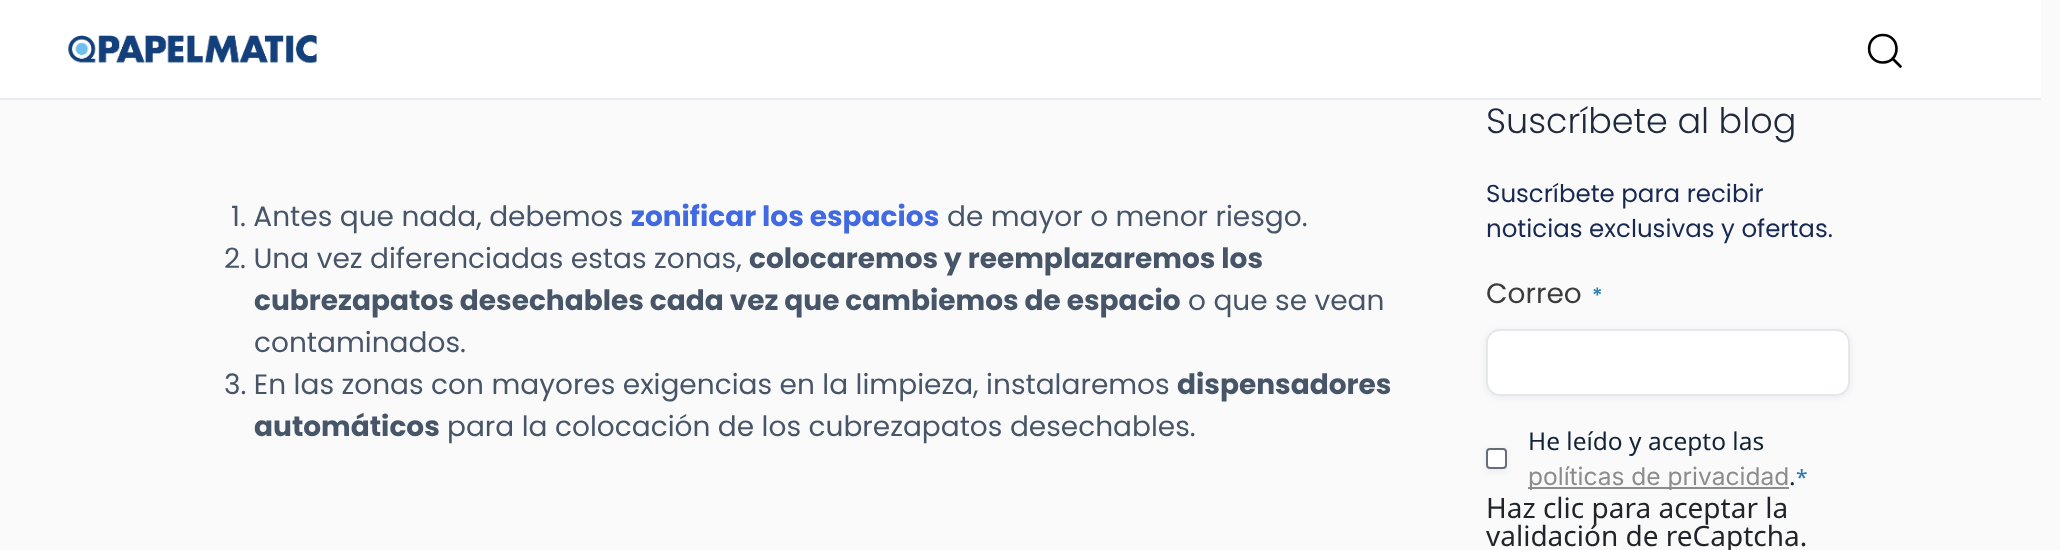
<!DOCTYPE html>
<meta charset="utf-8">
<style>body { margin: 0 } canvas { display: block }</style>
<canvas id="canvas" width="2060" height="550"></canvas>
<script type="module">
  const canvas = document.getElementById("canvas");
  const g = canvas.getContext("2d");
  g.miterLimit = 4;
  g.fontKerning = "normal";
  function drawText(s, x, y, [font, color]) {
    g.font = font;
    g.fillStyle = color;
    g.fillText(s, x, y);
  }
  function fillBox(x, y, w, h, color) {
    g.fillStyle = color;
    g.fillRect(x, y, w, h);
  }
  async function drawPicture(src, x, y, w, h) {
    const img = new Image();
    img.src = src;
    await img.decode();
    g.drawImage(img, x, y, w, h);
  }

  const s1 = ["28px Poppins", "#475569"];
  const s2 = ["bold 28px Poppins", "#4169E1"];
  const s3 = ["bold 28px Poppins", "#475569"];
  const s4 = ["300 35px Poppins", "#1E293B"];
  const s5 = ["24.5px Poppins", "#172950"];
  const s6 = ["28px Poppins", "#3C3C3C"];
  const s7 = ["500 21px Poppins", "#2A7BB4"];
  const s8 = ["24.5px Noto Sans", "#112337"];
  const s9 = ["24.5px Inter", "#8C8C8C"];
  const s10 = ["500 21px Noto Sans", "#2A7BB4"];
  const s11 = ["28px Noto Sans", "#212529"];

  fillBox(0, 0, 2060, 550, "#FAFAFA");
  fillBox(0, 0, 2041, 98, "#FFFFFF");
  fillBox(0, 98, 2041, 2, "#E9EBF1");
  await drawPicture("pic1.png", 68, 34, 249, 29);
  g.beginPath();
  g.moveTo(1883, 62.5);
  g.bezierCurveTo(1901, 62.5, 1901, 35, 1883, 35);
  g.bezierCurveTo(1864.5, 35, 1864.5, 62.5, 1883, 62.5);
  g.closePath();
  g.moveTo(1892.5, 58.5);
  g.lineTo(1900.5, 66.5);
  g.strokeStyle = "#000000";
  g.lineWidth = 2.6;
  g.lineCap = "round";
  g.lineJoin = "round";
  g.stroke();
  drawText("1. Antes que nada, debemos", 231, 226, s1);
  drawText("zonificar los espacios", 631, 226, s2);
  drawText("de mayor o menor riesgo.", 947, 226, s1);
  drawText("2. Una vez diferenciadas estas zonas,", 224, 268, s1);
  drawText("colocaremos y reemplazaremos los", 749, 268, s3);
  drawText("cubrezapatos desechables cada vez que cambiemos de espacio", 254, 310, s3);
  drawText("o que se vean", 1188, 310, s1);
  drawText("contaminados.", 254, 352, s1);
  drawText("3. En las zonas con mayores exigencias en la limpieza, instalaremos", 224, 394, s1);
  drawText("dispensadores", 1177, 394, s3);
  drawText("automáticos", 254, 436, s3);
  drawText("para la colocación de los cubrezapatos desechables.", 447, 436, s1);
  drawText("Suscríbete al blog", 1486, 133, s4);
  drawText("Suscríbete para recibir", 1486, 202, s5);
  drawText("noticias exclusivas y ofertas.", 1486, 237, s5);
  drawText("Correo", 1486, 303, s6);
  drawText("*", 1592, 303, s7);
  g.fillStyle = "rgba(18, 25, 97, 0.08)";
  g.filter = "blur(3.5px)";
  g.beginPath();
  g.roundRect(1486, 331, 364, 66, 14);
  g.fill();
  g.filter = "none";
  g.fillStyle = "#FFFFFF";
  g.beginPath();
  g.roundRect(1487, 330, 362, 65, 13);
  g.fill();
  g.strokeStyle = "#E5E7EB";
  g.lineWidth = 2;
  g.lineJoin = "miter";
  g.stroke();
  g.fillStyle = "rgba(18, 25, 97, 0.08)";
  g.filter = "blur(3.5px)";
  g.beginPath();
  g.roundRect(1486, 450, 21, 21, 4);
  g.fill();
  g.filter = "none";
  g.fillStyle = "#FFFFFF";
  g.beginPath();
  g.roundRect(1487, 449, 19, 19, 3);
  g.fill();
  g.strokeStyle = "#686E77";
  g.stroke();
  drawText("He leído y acepto las", 1528, 450, s8);
  fillBox(1528, 487, 261, 2, "#8C8C8C");
  drawText("políticas de privacidad", 1528, 485, s9);
  drawText("*", 1796, 485, s10);
  drawText(".", 1789, 485, s8);
  drawText("Haz clic para aceptar la", 1486, 518, s11);
  drawText("validación de reCaptcha.", 1486, 546, s11);
</script>
